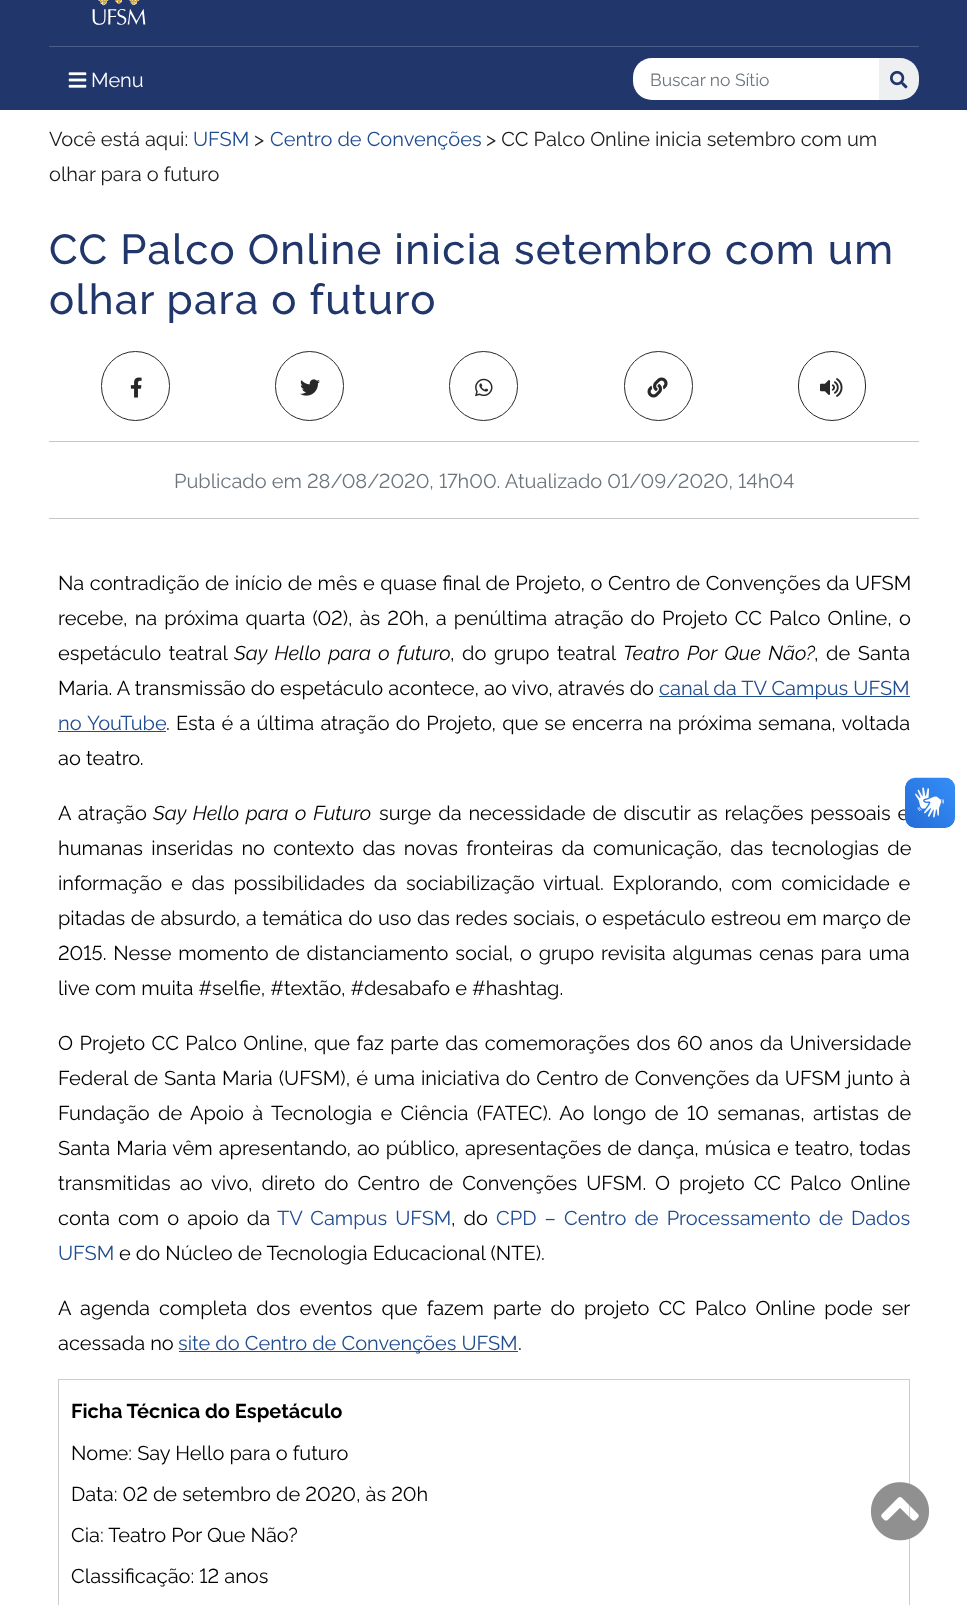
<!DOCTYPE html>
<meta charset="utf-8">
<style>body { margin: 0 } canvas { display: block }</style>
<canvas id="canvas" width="967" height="1605"></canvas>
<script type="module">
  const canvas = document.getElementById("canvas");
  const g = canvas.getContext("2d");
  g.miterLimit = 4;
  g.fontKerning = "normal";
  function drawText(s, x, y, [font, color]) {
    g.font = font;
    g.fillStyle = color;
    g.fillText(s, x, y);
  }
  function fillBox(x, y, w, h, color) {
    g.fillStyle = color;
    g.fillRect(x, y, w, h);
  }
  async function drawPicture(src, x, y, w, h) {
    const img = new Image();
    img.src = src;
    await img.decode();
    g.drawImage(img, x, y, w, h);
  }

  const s1 = ["20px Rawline", "#FFFFFF"];
  const s2 = ["17.5px Rawline", "#6C757D"];
  const s3 = ["20px Rawline", "#1C1C1C"];
  const s4 = ["20px Rawline", "#204C90"];
  const s5 = ["500 42px Rawline", "#21376B"];
  const s6 = ["20px Rawline", "#6C757D"];
  const s7 = ["20px Rawline", "#000000"];
  const s8 = ["italic 20px Rawline", "#000000"];
  const s9 = ["bold 20px Rawline", "#000000"];

  fillBox(0, 0, 967, 1605, "#FFFFFF");
  fillBox(0, 0, 967, 110, "#21376B");
  fillBox(49, 46, 870, 1, "#4D5F89");
  await drawPicture("pic1.png", 92, 0, 54, 25);
  await drawPicture("pic2.png", 68, 72, 19, 16);
  drawText("Menu", 91, 87, s1);
  g.save();
  g.beginPath();
  g.roundRect(633, 58, 286, 42, 19);
  g.clip();
  g.beginPath();
  g.roundRect(631, 58, 249, 42, [5, 0, 0, 5]);
  g.fill();
  g.restore();
  drawText("Buscar no Sítio", 650, 86, s2);
  g.fillStyle = "#EEEFF1";
  g.beginPath();
  g.roundRect(879, 58, 40, 42, [0, 19, 19, 0]);
  g.fill();
  await drawPicture("pic3.png", 890, 70, 18, 19);
  drawText("Você está aqui:", 49, 146, s3);
  drawText("UFSM", 193, 146, s4);
  drawText(">", 254, 146, s3);
  drawText("Centro de Convenções", 270, 146, s4);
  drawText("> CC Palco Online inicia setembro com um", 486, 146, s3);
  drawText("olhar para o futuro", 49, 181, s3);
  g.letterSpacing = "1.25px";
  drawText("CC Palco Online inicia setembro com um", 49, 264, s5);
  drawText("olhar para o futuro", 49, 314, s5);
  g.beginPath();
  g.roundRect(101.5, 351.5, 68, 69, 34);
  g.strokeStyle = "#282828";
  g.stroke();
  await drawPicture("pic4.png", 130, 377, 12, 21);
  g.beginPath();
  g.roundRect(275.5, 351.5, 68, 69, 34);
  g.stroke();
  await drawPicture("pic5.png", 300, 379, 20, 17);
  g.beginPath();
  g.roundRect(449.5, 351.5, 68, 69, 34);
  g.stroke();
  await drawPicture("pic6.png", 475, 378, 18, 19);
  g.beginPath();
  g.roundRect(624.5, 351.5, 68, 69, 34);
  g.stroke();
  await drawPicture("pic7.png", 647, 377, 21, 21);
  g.beginPath();
  g.roundRect(798.5, 351.5, 67, 69, 33.5);
  g.stroke();
  await drawPicture("pic8.png", 820, 378, 23, 19);
  fillBox(49, 441, 870, 1, "#C6C6C6");
  g.letterSpacing = "0px";
  drawText("Publicado em 28/08/2020, 17h00. Atualizado 01/09/2020, 14h04", 174, 488, s6);
  fillBox(49, 518, 870, 1, "#C6C6C6");
  g.wordSpacing = "0.5px";
  drawText("Na contradição de início de mês e quase final de Projeto, o Centro de Convenções da UFSM", 58, 590, s7);
  g.wordSpacing = "2px";
  drawText("recebe, na próxima quarta (02), às 20h, a penúltima atração do Projeto CC Palco Online, o", 58, 625, s7);
  g.wordSpacing = "2.5px";
  drawText("espetáculo teatral", 58, 660, s7);
  drawText("Say Hello para o futuro", 234, 660, s8);
  drawText(", do grupo teatral", 450, 660, s7);
  drawText("Teatro Por Que Não?", 623, 660, s8);
  drawText(", de Santa", 814, 660, s7);
  g.wordSpacing = "0px";
  drawText("Maria. A transmissão do espetáculo acontece, ao vivo, através do", 58, 695, s7);
  fillBox(659, 696, 251, 1, "#204C90");
  drawText("canal da TV Campus UFSM", 659, 695, s4);
  g.wordSpacing = "1.1px";
  drawText("no YouTube", 58, 730, s4);
  fillBox(58, 731, 108, 1, "#204C90");
  drawText(". Esta é a última atração do Projeto, que se encerra na próxima semana, voltada", 166, 730, s7);
  g.wordSpacing = "0px";
  drawText("ao teatro.", 58, 765, s7);
  g.wordSpacing = "1.75px";
  drawText("A atração", 58, 820, s7);
  drawText("Say Hello para o Futuro", 153, 820, s8);
  drawText("surge da necessidade de discutir as relações pessoais e", 379, 820, s7);
  g.wordSpacing = "3.25px";
  drawText("humanas inseridas no contexto das novas fronteiras da comunicação, das tecnologias de", 58, 855, s7);
  g.wordSpacing = "3.75px";
  drawText("informação e das possibilidades da sociabilização virtual. Explorando, com comicidade e", 58, 890, s7);
  g.wordSpacing = "0.4px";
  drawText("pitadas de absurdo, a temática do uso das redes sociais, o espetáculo estreou em março de", 58, 925, s7);
  g.wordSpacing = "1.75px";
  drawText("2015. Nesse momento de distanciamento social, o grupo revisita algumas cenas para uma", 58, 960, s7);
  g.wordSpacing = "0px";
  drawText("live com muita #selfie, #textão, #desabafo e #hashtag.", 58, 995, s7);
  g.wordSpacing = "1.4px";
  drawText("O Projeto CC Palco Online, que faz parte das comemorações dos 60 anos da Universidade", 58, 1050, s7);
  g.wordSpacing = "0.9px";
  drawText("Federal de Santa Maria (UFSM), é uma iniciativa do Centro de Convenções da UFSM junto à", 58, 1085, s7);
  g.wordSpacing = "3.25px";
  drawText("Fundação de Apoio à Tecnologia e Ciência (FATEC). Ao longo de 10 semanas, artistas de", 58, 1120, s7);
  g.wordSpacing = "0.9px";
  drawText("Santa Maria vêm apresentando, ao público, apresentações de dança, música e teatro, todas", 58, 1155, s7);
  g.wordSpacing = "4px";
  drawText("transmitidas ao vivo, direto do Centro de Convenções UFSM.", 58, 1190, s7);
  drawText("O projeto CC Palco Online", 655, 1190, s7);
  g.wordSpacing = "3px";
  drawText("conta com o apoio da", 58, 1225, s7);
  drawText("TV Campus UFSM", 277, 1225, s4);
  drawText(", do", 451, 1225, s7);
  drawText("CPD – Centro de Processamento de Dados", 496, 1225, s4);
  g.wordSpacing = "0px";
  drawText("UFSM", 58, 1260, s4);
  drawText("e do Núcleo de Tecnologia Educacional (NTE).", 119, 1260, s7);
  g.wordSpacing = "4px";
  drawText("A agenda completa dos eventos que fazem parte do projeto CC Palco Online pode ser", 58, 1315, s7);
  g.wordSpacing = "0px";
  drawText("acessada no", 58, 1350, s7);
  fillBox(179, 1351, 339, 1, "#204C90");
  drawText("site do Centro de Convenções UFSM", 178, 1350, s4);
  drawText(".", 518, 1350, s7);
  fillBox(58, 1379, 852, 1, "#CCCCCC");
  fillBox(909, 1379, 1, 226, "#CCCCCC");
  fillBox(58, 1379, 1, 226, "#CCCCCC");
  drawText("Ficha Técnica do Espetáculo", 71, 1418, s9);
  drawText("Nome: Say Hello para o futuro", 71, 1460, s7);
  drawText("Data: 02 de setembro de 2020, às 20h", 71, 1501, s7);
  drawText("Cia: Teatro Por Que Não?", 71, 1542, s7);
  drawText("Classificação: 12 anos", 71, 1583, s7);
  await drawPicture("pic9.png", 870, 1482, 60, 59);
  await drawPicture("pic10.png", 905, 777, 50, 51);
  await drawPicture("pic11.png", 905, 778, 50, 50);
</script>
